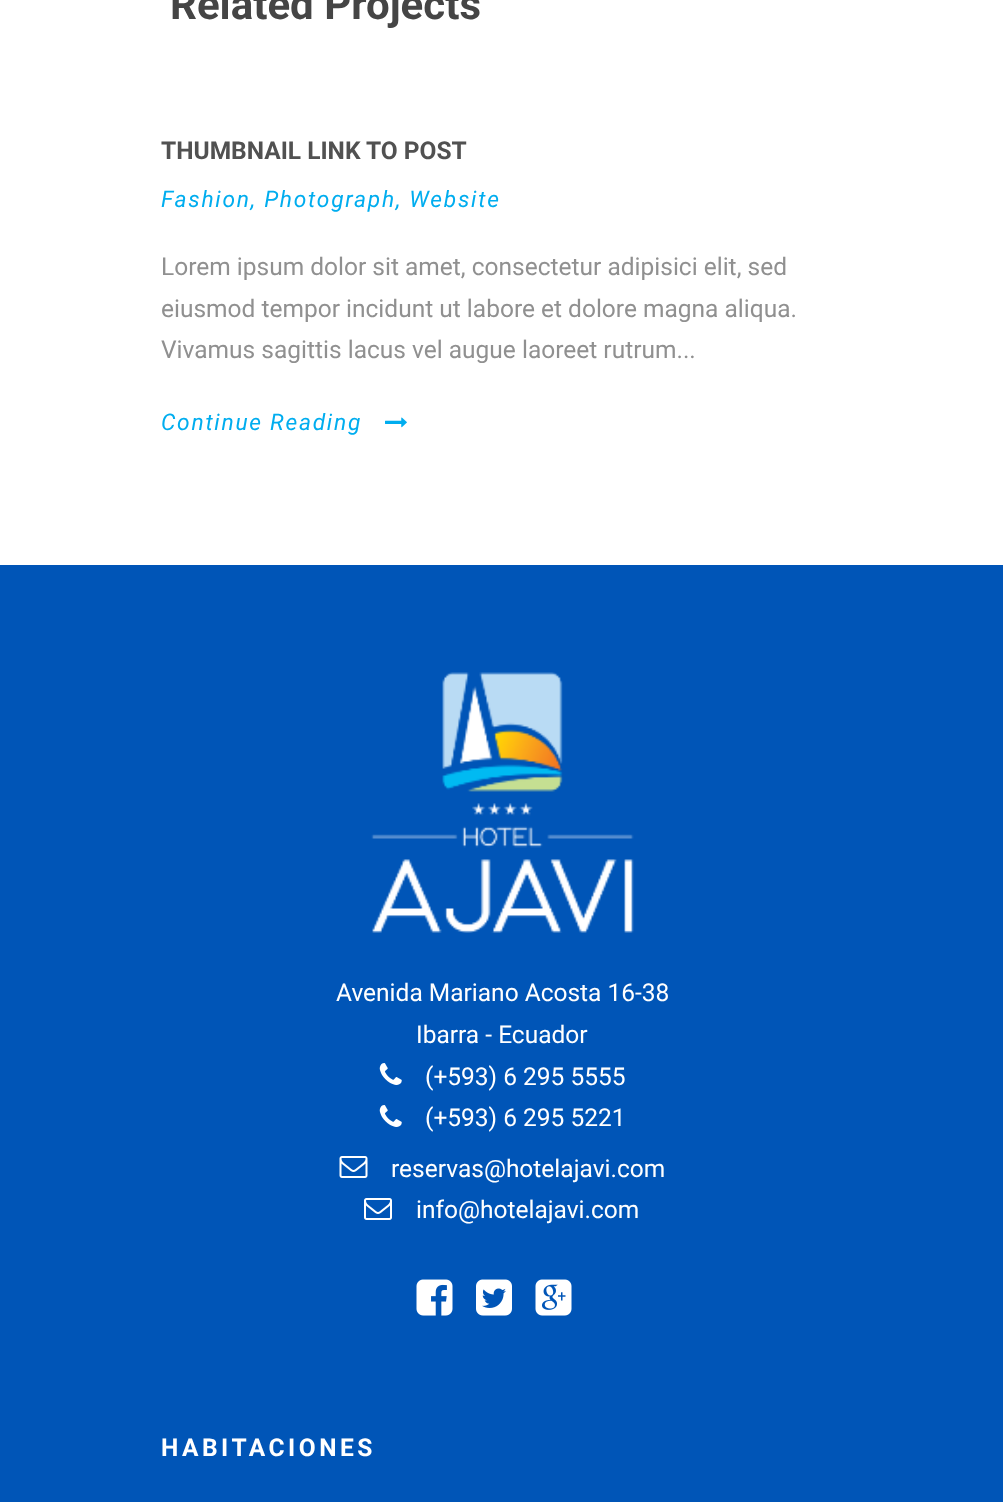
<!DOCTYPE html>
<meta charset="utf-8">
<style>body { margin: 0 } canvas { display: block }</style>
<canvas id="canvas" width="1003" height="1502"></canvas>
<script type="module">
  const canvas = document.getElementById("canvas");
  const g = canvas.getContext("2d");
  g.miterLimit = 4;
  g.fontKerning = "normal";
  function drawText(s, x, y, [font, color]) {
    g.font = font;
    g.fillStyle = color;
    g.fillText(s, x, y);
  }
  function fillBox(x, y, w, h, color) {
    g.fillStyle = color;
    g.fillRect(x, y, w, h);
  }
  async function drawPicture(src, x, y, w, h) {
    const img = new Image();
    img.src = src;
    await img.decode();
    g.drawImage(img, x, y, w, h);
  }

  const s1 = ["bold 42px Roboto", "#454545"];
  const s2 = ["bold 24.5px Roboto", "#515151"];
  const s3 = ["italic 22.75px Roboto", "#00ADEF"];
  const s4 = ["24.5px Roboto", "#909090"];
  const s5 = ["24.5px Roboto", "#FFFFFF"];
  const s6 = ["bold 24.5px Roboto", "#FFFFFF"];

  fillBox(0, 0, 1003, 1502, "#FFFFFF");
  drawText("Related Projects", 170, 19, s1);
  drawText("THUMBNAIL LINK TO POST", 161, 159, s2);
  g.letterSpacing = "1.75px";
  drawText("Fashion, Photograph, Website", 161, 207, s3);
  g.letterSpacing = "0px";
  drawText("Lorem ipsum dolor sit amet, consectetur adipisici elit, sed", 161, 275, s4);
  drawText("eiusmod tempor incidunt ut labore et dolore magna aliqua.", 161, 317, s4);
  drawText("Vivamus sagittis lacus vel augue laoreet rutrum...", 161, 358, s4);
  g.letterSpacing = "1.75px";
  drawText("Continue Reading", 161, 430, s3);
  await drawPicture("pic1.png", 385, 417, 22, 11);
  fillBox(0, 565, 1003, 937, "#0055B7");
  await drawPicture("pic2.png", 371, 672, 263, 261);
  g.letterSpacing = "0px";
  drawText("Avenida Mariano Acosta 16-38", 336, 1001, s5);
  drawText("Ibarra - Ecuador", 416, 1043, s5);
  await drawPicture("pic3.png", 379, 1063, 23, 22);
  drawText("(+593) 6 295 5555", 425, 1085, s5);
  await drawPicture("pic3.png", 379, 1105, 23, 22);
  drawText("(+593) 6 295 5221", 425, 1126, s5);
  await drawPicture("pic4.png", 339, 1156, 29, 22);
  drawText("reservas@hotelajavi.com", 391, 1177, s5);
  await drawPicture("pic5.png", 364, 1198, 28, 22);
  drawText("info@hotelajavi.com", 416, 1218, s5);
  await drawPicture("pic6.png", 416, 1279, 37, 37);
  await drawPicture("pic7.png", 476, 1279, 36, 37);
  await drawPicture("pic8.png", 535, 1279, 37, 37);
  g.letterSpacing = "3.5px";
  drawText("HABITACIONES", 161, 1456, s6);
</script>
